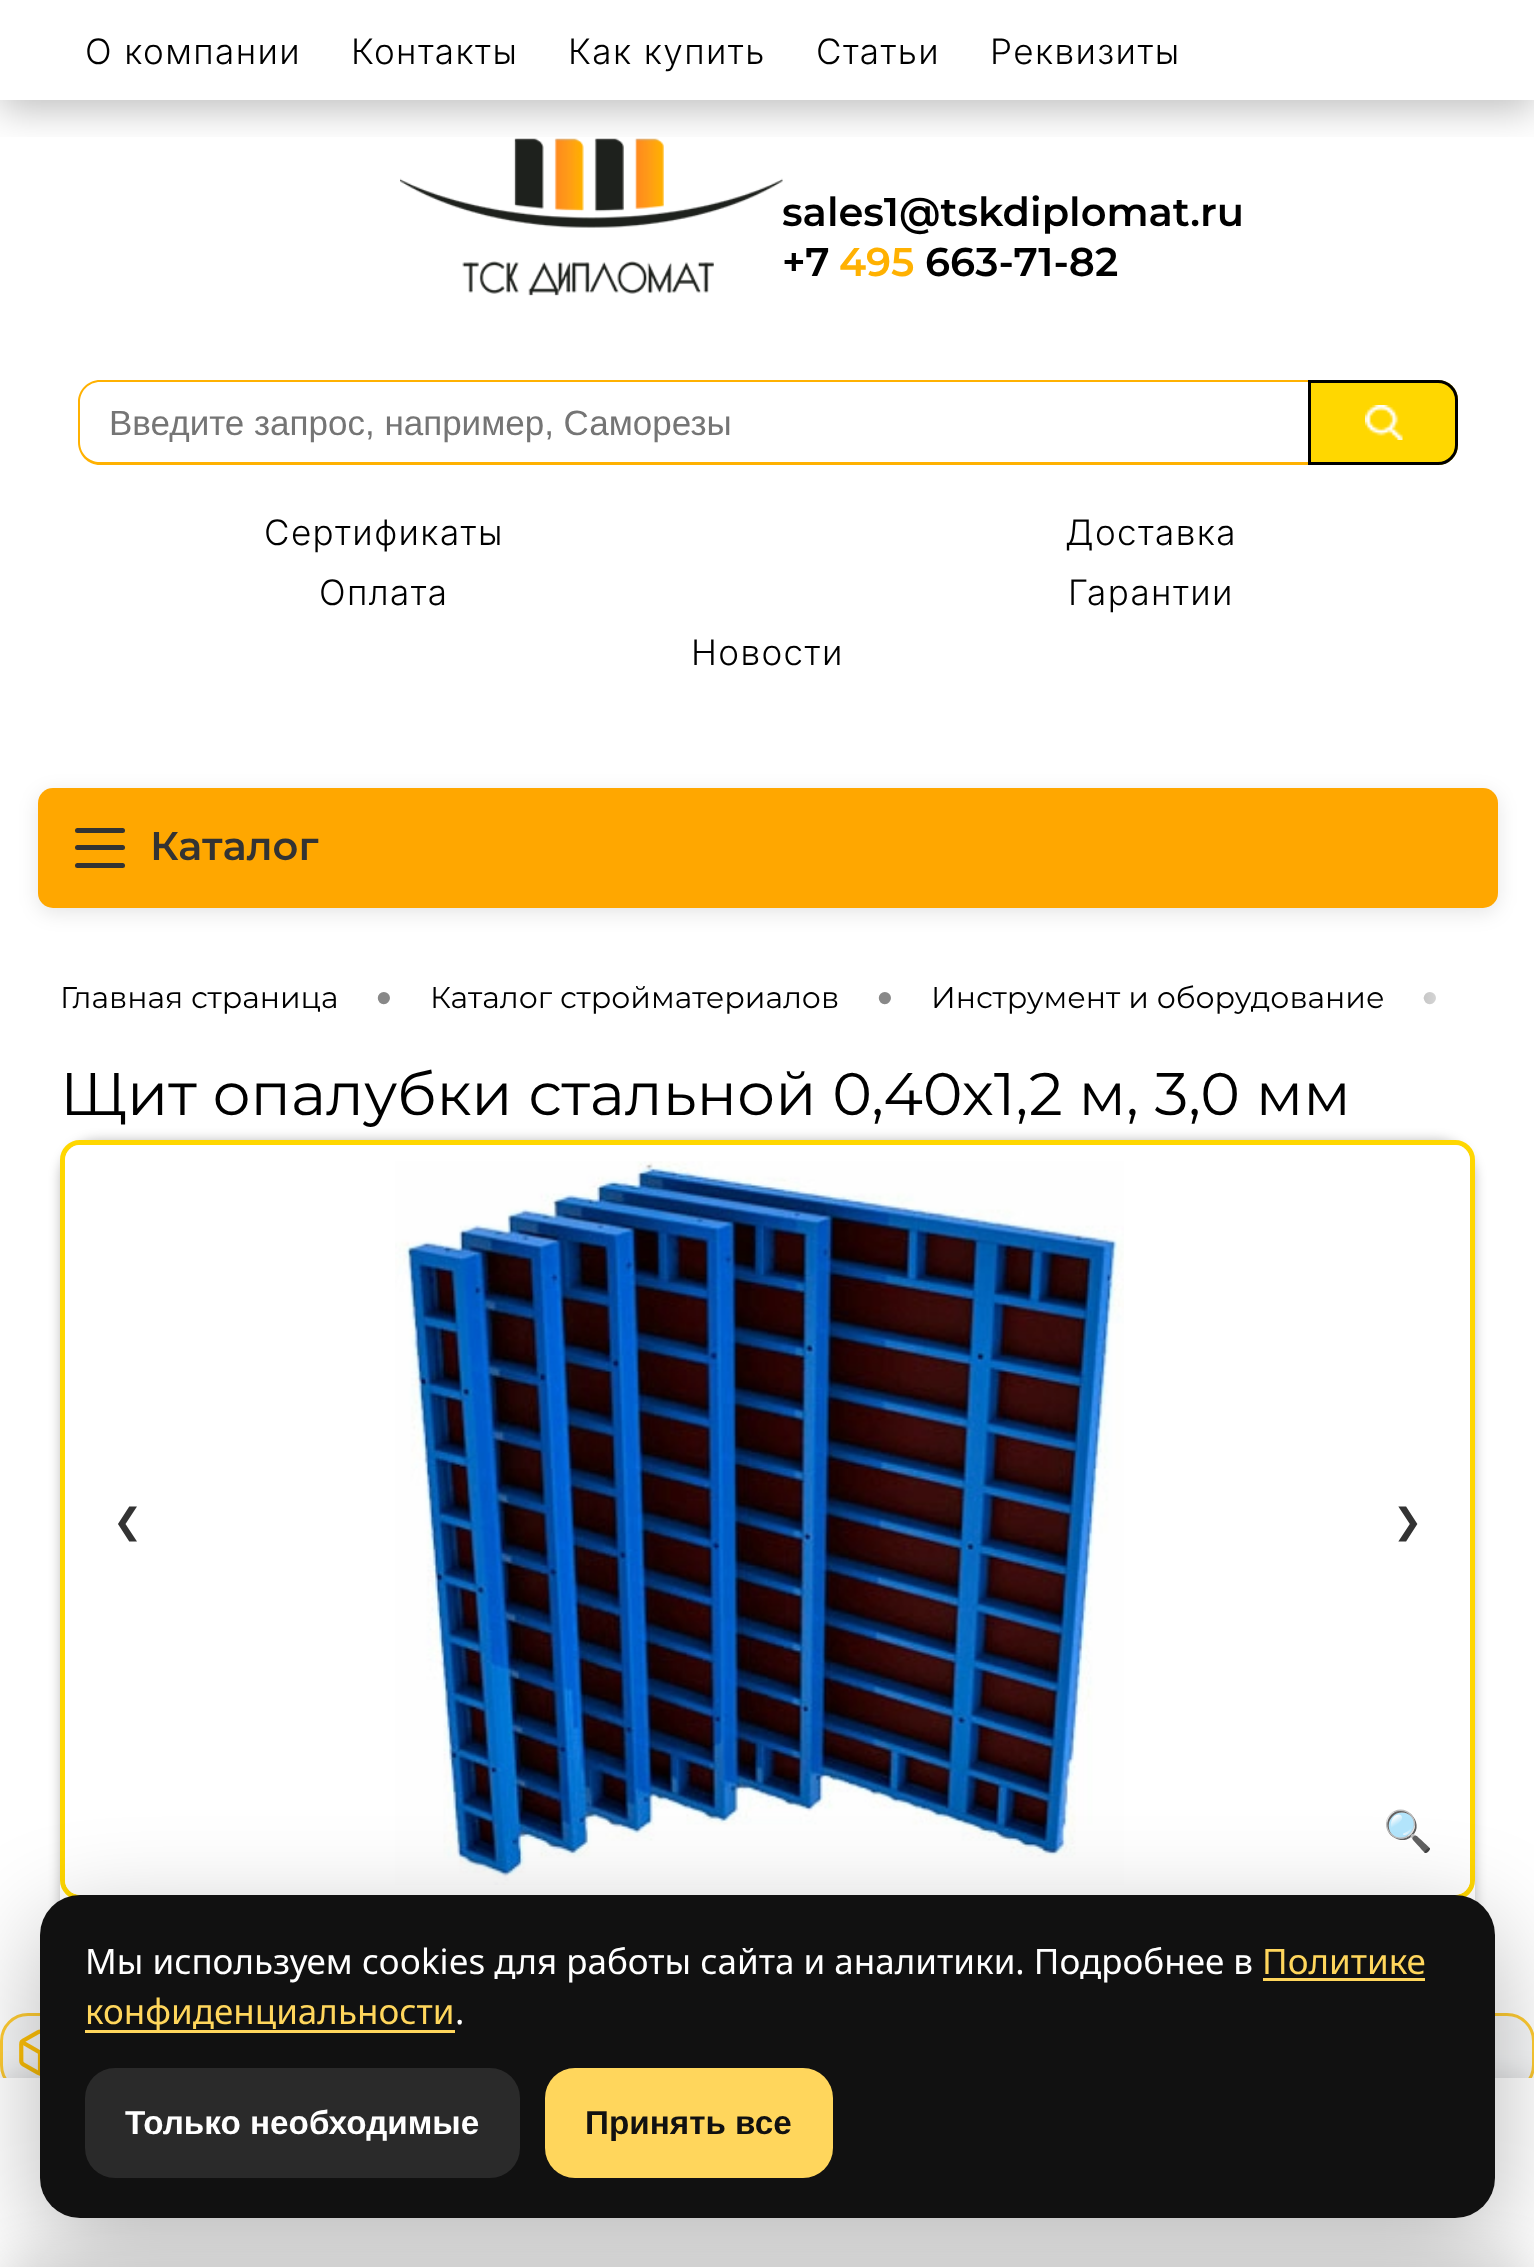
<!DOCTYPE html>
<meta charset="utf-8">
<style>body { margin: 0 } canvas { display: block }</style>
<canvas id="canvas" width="1534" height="2267"></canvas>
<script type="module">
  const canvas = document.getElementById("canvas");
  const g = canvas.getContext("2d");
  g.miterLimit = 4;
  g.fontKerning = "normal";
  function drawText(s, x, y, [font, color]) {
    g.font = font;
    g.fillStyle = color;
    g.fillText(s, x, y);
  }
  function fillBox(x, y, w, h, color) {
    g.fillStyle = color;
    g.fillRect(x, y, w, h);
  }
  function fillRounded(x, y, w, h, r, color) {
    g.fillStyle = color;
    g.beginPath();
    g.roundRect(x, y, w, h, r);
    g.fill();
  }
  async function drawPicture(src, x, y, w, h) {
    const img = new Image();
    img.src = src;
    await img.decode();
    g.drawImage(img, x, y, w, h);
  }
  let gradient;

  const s1 = ["300 35px Inter", "#000000"];
  const s2 = ["600 40px Montserrat", "#000000"];
  const s3 = ["600 40px Montserrat", "#FFB101"];
  const s4 = ["35px Liberation Sans", "#757575"];
  const s5 = ["600 40px Montserrat", "#333333"];
  const s6 = ["30px Montserrat", "#000000"];
  const s7 = ["45px Liberation Sans", "#888888"];
  const s8 = ["60px Montserrat", "#000000"];
  const s9 = ["35px DejaVu Sans", "#333333"];
  const s10 = ["40px Noto Color Emoji", "#333333"];
  const s11 = ["35px Noto Sans", "#FFFFFF"];
  const s12 = ["35px Noto Sans", "#FFD65C"];
  const s13 = ["bold 33.25px Liberation Sans", "#FFFFFF"];
  const s14 = ["bold 33.25px Liberation Sans", "#111111"];

  fillBox(0, 0, 1534, 2267, "#FFFFFF");
  g.save();
  g.beginPath();
  g.rect(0, 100, 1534, 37);
  g.clip();
  g.fillStyle = "rgba(0, 0, 0, 0.25)";
  g.filter = "blur(19px)";
  g.beginPath();
  g.rect(0, 10, 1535, 100);
  g.fill();
  g.filter = "none";
  g.restore();
  g.letterSpacing = "1.4px";
  drawText("О компании", 85, 64, s1);
  drawText("Контакты", 351, 64, s1);
  drawText("Как купить", 568, 64, s1);
  drawText("Статьи", 816, 64, s1);
  drawText("Реквизиты", 990, 64, s1);
  g.letterSpacing = "0px";
  drawText("sales1@tskdiplomat.ru", 782, 226, s2);
  await drawPicture("pic1.png", 400, 138, 383, 158);
  drawText("+7", 782, 276, s2);
  drawText("495", 839, 276, s3);
  drawText("663-71-82", 925, 276, s2);
  g.fillStyle = "#FFB101";
  g.beginPath();
  g.moveTo(100, 380);
  g.lineTo(1308, 380);
  g.lineTo(1308, 465);
  g.lineTo(100, 465);
  g.bezierCurveTo(88, 465, 78, 455, 78, 442);
  g.lineTo(78, 402);
  g.bezierCurveTo(78, 390, 88, 380, 100, 380);
  g.closePath();
  g.moveTo(100, 382);
  g.lineTo(1308, 382);
  g.lineTo(1308, 462);
  g.lineTo(100, 462);
  g.bezierCurveTo(89, 462, 80, 454, 80, 442);
  g.lineTo(80, 402);
  g.bezierCurveTo(80, 391, 89, 382, 100, 382);
  g.closePath();
  g.fill("evenodd");
  drawText("Введите запрос, например, Саморезы", 109, 435, s4);
  g.fillStyle = "#FFD700";
  g.beginPath();
  g.roundRect(1308, 380, 150, 85, [0, 20, 20, 0]);
  g.fill();
  await drawPicture("pic2.png", 1365, 405, 38, 35);
  g.beginPath();
  g.roundRect(1309.5, 381.5, 147, 82, [0, 18.5, 18.5, 0]);
  g.strokeStyle = "#000000";
  g.lineWidth = 3;
  g.stroke();
  g.letterSpacing = "1.4px";
  drawText("Сертификаты", 264, 545, s1);
  drawText("Доставка", 1065, 545, s1);
  drawText("Оплата", 319, 605, s1);
  drawText("Гарантии", 1068, 605, s1);
  drawText("Новости", 691, 665, s1);
  g.save();
  g.beginPath();
  g.moveTo(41, 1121);
  g.lineTo(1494, 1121);
  g.lineTo(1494, 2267);
  g.lineTo(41, 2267);
  g.closePath();
  g.moveTo(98, 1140);
  g.lineTo(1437, 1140);
  g.bezierCurveTo(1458, 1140, 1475, 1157, 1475, 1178);
  g.lineTo(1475, 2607);
  g.bezierCurveTo(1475, 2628, 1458, 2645, 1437, 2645);
  g.lineTo(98, 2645);
  g.bezierCurveTo(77, 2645, 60, 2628, 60, 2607);
  g.lineTo(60, 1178);
  g.bezierCurveTo(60, 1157, 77, 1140, 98, 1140);
  g.closePath();
  g.clip("evenodd");
  g.fillStyle = "rgba(0, 0, 0, 0.25)";
  g.filter = "blur(6px)";
  g.beginPath();
  g.roundRect(60, 1140, 1415, 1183, 38);
  g.fill();
  g.filter = "none";
  g.restore();
  g.fillStyle = "#F7F8F9";
  g.beginPath();
  g.roundRect(1.5, 2014.5, 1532, 77, 26.5);
  g.fill();
  g.strokeStyle = "#FFCC33";
  g.stroke();
  await drawPicture("pic3.png", 19, 2029, 21, 47);
  g.fillStyle = "rgba(0, 0, 0, 0.1)";
  g.filter = "blur(12.5px)";
  g.beginPath();
  g.rect(0, 2073, 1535, 190);
  g.fill();
  g.filter = "none";
  fillBox(0, 2078, 1534, 189, "#FFFFFF");
  g.fillStyle = "rgba(0, 0, 0, 0.15)";
  g.filter = "blur(25px)";
  g.beginPath();
  g.roundRect(0, 2260, 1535, 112, 30);
  g.fill();
  g.filter = "none";
  g.fillStyle = "rgba(0, 0, 0, 0.1)";
  g.filter = "blur(10px)";
  g.beginPath();
  g.roundRect(38, 793, 1460, 120, 15);
  g.fill();
  g.filter = "none";
  fillRounded(38, 788, 1460, 120, 15, "#FFA700");
  fillRounded(75, 828, 50, 5, 2.5, "#333333");
  fillRounded(75, 845, 50, 5, 2.5, "#333333");
  fillRounded(75, 863, 50, 5, 2.5, "#333333");
  g.letterSpacing = "0px";
  drawText("Каталог", 150, 860, s5);
  drawText("Главная страница", 60, 1008, s6);
  drawText("•", 376, 1013, s7);
  drawText("Каталог стройматериалов", 430, 1008, s6);
  drawText("•", 877, 1013, s7);
  drawText("Инструмент и оборудование", 931, 1008, s6);
  drawText("•", 1422, 1013, s7);
  gradient = g.createLinearGradient(1388, 994, 1475, 994);
  gradient.addColorStop(0, "rgba(255, 255, 255, 0.2)");
  gradient.addColorStop(1, "#FFFFFF");
  g.fillStyle = gradient;
  g.fillRect(1424, 992, 13, 13);
  drawText("Щит опалубки стальной 0,40х1,2 м, 3,0 мм", 60, 1115, s8);
  g.beginPath();
  g.roundRect(62.5, 1142.5, 1410, 755, 17.5);
  g.strokeStyle = "#FFD700";
  g.lineWidth = 5;
  g.stroke();
  fillRounded(65, 1145, 1405, 750, 15, "#FFFFFF");
  drawText("❮", 113, 1533, s9);
  drawText("❯", 1393, 1533, s9);
  await drawPicture("pic4.png", 395, 1161, 729, 724);
  drawText("🔍", 1383, 1845, s10);
  g.fillStyle = "rgba(0, 0, 0, 0.28)";
  g.filter = "blur(50px)";
  g.beginPath();
  g.roundRect(40, 1925, 1455, 323, 40);
  g.fill();
  g.filter = "none";
  fillRounded(40, 1895, 1455, 323, 40, "#111111");
  drawText("Мы используем cookies для работы сайта и аналитики. Подробнее в", 85, 1974, s11);
  drawText("Политике", 1262, 1974, s12);
  fillBox(1263, 1978, 162, 3, "#FFD65C");
  fillBox(85, 2030, 370, 3, "#FFD65C");
  drawText("конфиденциальности", 85, 2024, s12);
  drawText(".", 455, 2024, s11);
  fillRounded(85, 2068, 435, 110, 30, "#2A2A2A");
  drawText("Только необходимые", 125, 2134, s13);
  fillRounded(545, 2068, 288, 110, 30, "#FFD65C");
  drawText("Принять все", 585, 2134, s14);
</script>
